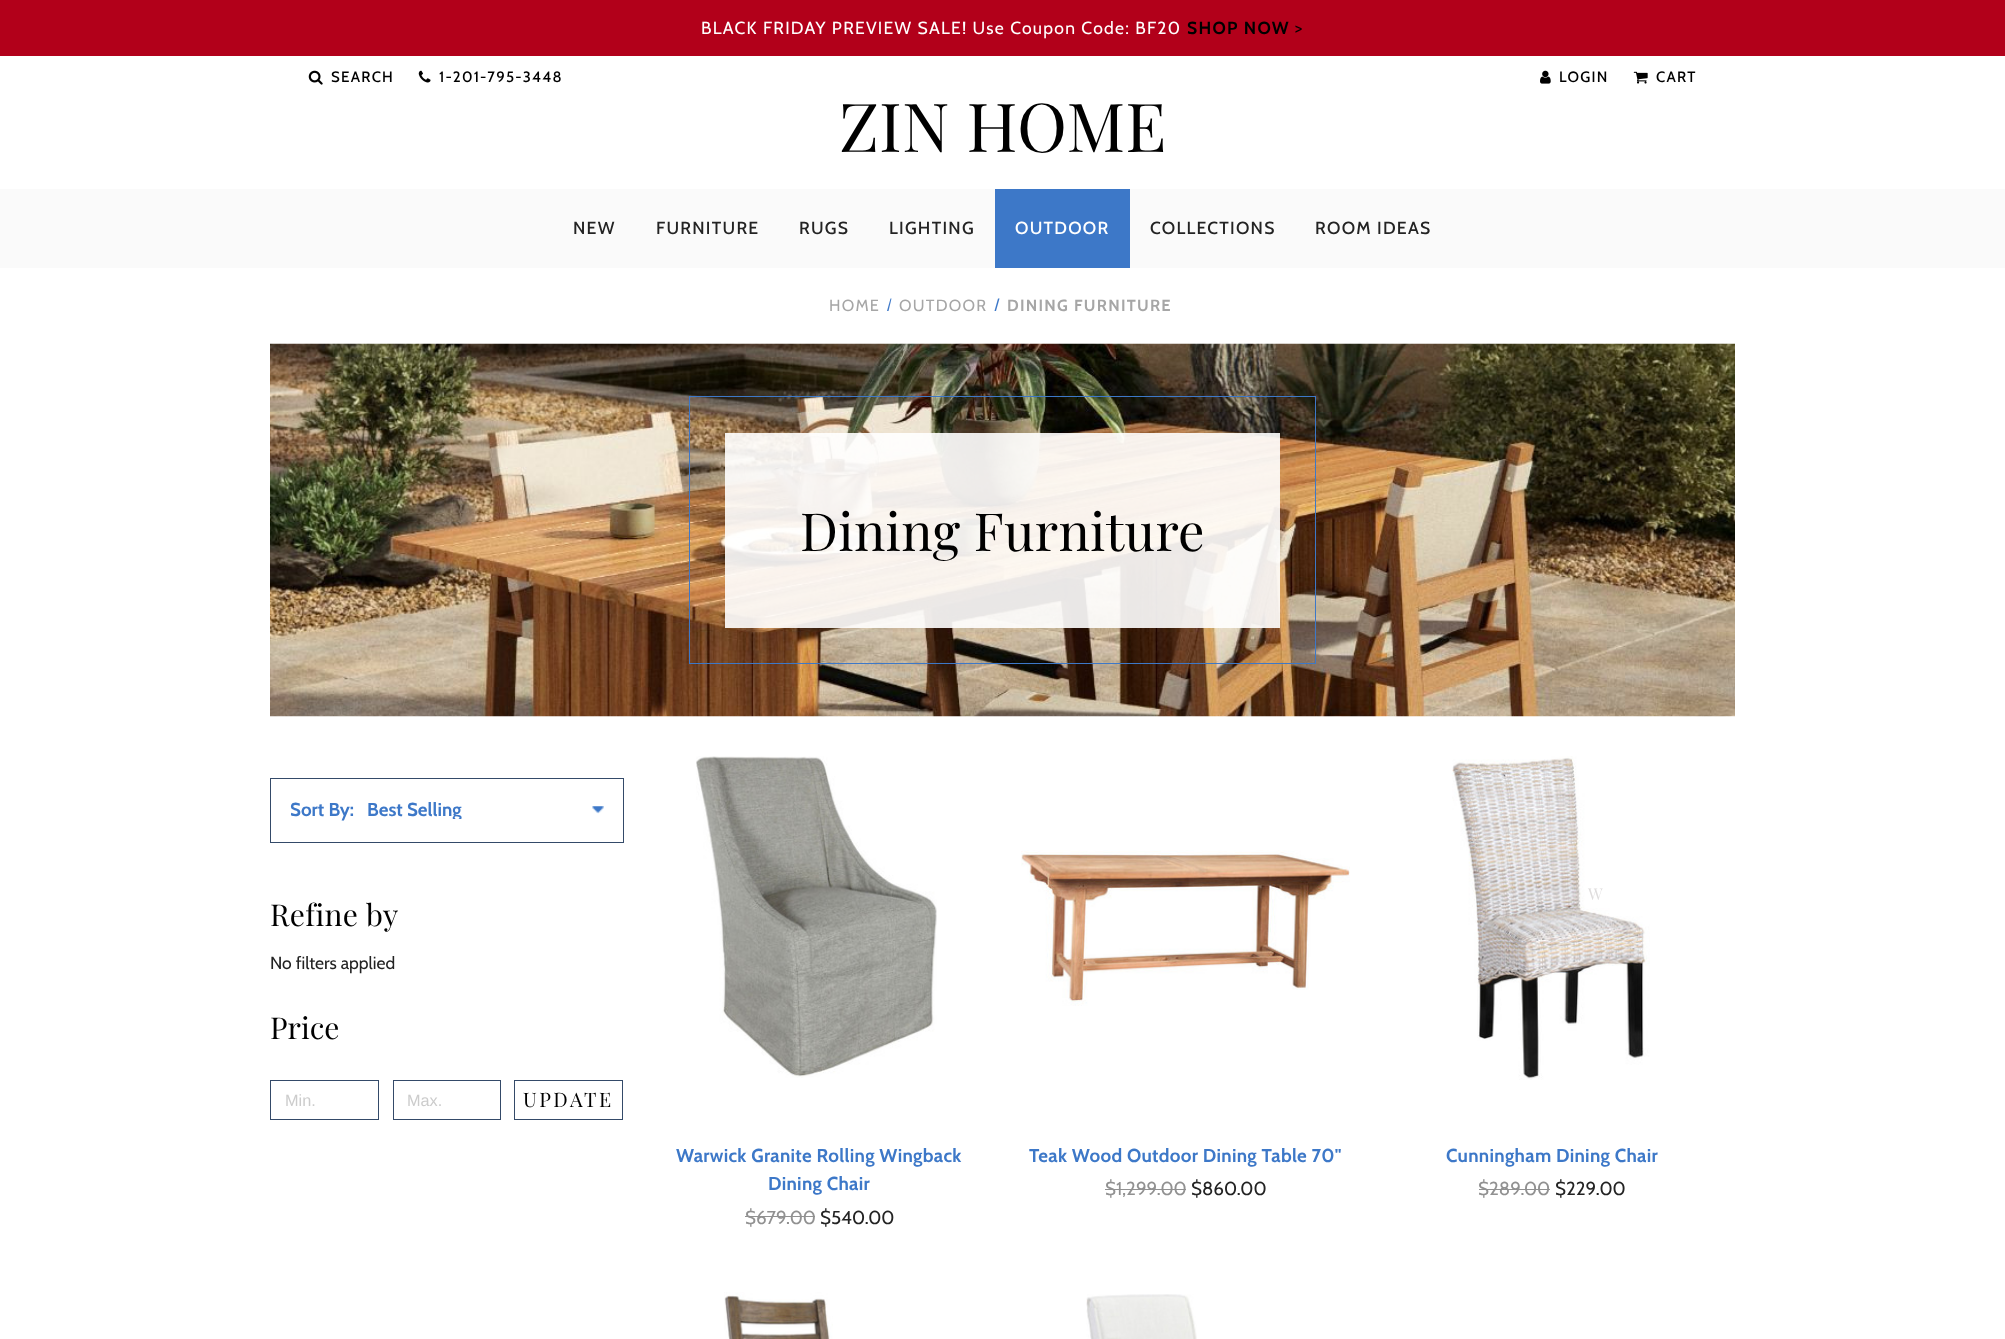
<!DOCTYPE html>
<meta charset="utf-8">
<style>body { margin: 0 } canvas { display: block }</style>
<canvas id="canvas" width="2005" height="1339"></canvas>
<script type="module">
  const canvas = document.getElementById("canvas");
  const g = canvas.getContext("2d");
  g.miterLimit = 4;
  g.fontKerning = "normal";
  function drawText(s, x, y, [font, color]) {
    g.font = font;
    g.fillStyle = color;
    g.fillText(s, x, y);
  }
  function fillBox(x, y, w, h, color) {
    g.fillStyle = color;
    g.fillRect(x, y, w, h);
  }
  async function drawPicture(src, x, y, w, h) {
    const img = new Image();
    img.src = src;
    await img.decode();
    g.drawImage(img, x, y, w, h);
  }

  const s1 = ["17.5px Cabin", "#FFFFFF"];
  const s2 = ["bold 17.5px Cabin", "#000000"];
  const s3 = ["17.5px Cabin", "#000000"];
  const s4 = ["500 15px Cabin", "#000000"];
  const s5 = ["67.5px Playfair Display", "#000000"];
  const s6 = ["500 17.5px Cabin", "#232323"];
  const s7 = ["500 17.5px Cabin", "#FFFFFF"];
  const s8 = ["16.25px Cabin", "#A6A6A6"];
  const s9 = ["bold 16.25px Cabin", "#A6A6A6"];
  const s10 = ["52.5px Playfair Display", "#000000"];
  const s11 = ["bold 18.75px Cabin", "#3D78C8"];
  const s12 = ["30px Playfair Display", "#000000"];
  const s13 = ["17.5px Cabin", "#232323"];
  const s14 = ["16.25px Liberation Sans", "#CCCCCC"];
  const s15 = ["20px Playfair Display", "#000000"];
  const s16 = ["18.75px Cabin", "#919191"];
  const s17 = ["18.75px Cabin", "#232323"];
  const s18 = ["16.25px Playfair Display", "#DFDDDD"];

  fillBox(0, 0, 2005, 1339, "#FFFFFF");
  fillBox(0, 0, 2005, 56, "#B2001A");
  g.letterSpacing = "1.25px";
  drawText("BLACK FRIDAY PREVIEW SALE! Use Coupon Code: BF20", 701, 34, s1);
  drawText("SHOP NOW", 1187, 34, s2);
  drawText(">", 1295, 34, s3);
  await drawPicture("pic1.png", 308, 70, 15, 15);
  drawText("SEARCH", 331, 82, s4);
  await drawPicture("pic2.png", 418, 70, 13, 13);
  drawText("1-201-795-3448", 439, 82, s4);
  await drawPicture("pic3.png", 1540, 70, 11, 14);
  drawText("LOGIN", 1559, 82, s4);
  await drawPicture("pic4.png", 1633, 71, 15, 13);
  drawText("CART", 1656, 82, s4);
  g.letterSpacing = "0px";
  drawText("ZIN HOME", 839, 152, s5);
  fillBox(0, 189, 2005, 79, "#FAFAFA");
  g.letterSpacing = "1.25px";
  drawText("NEW", 573, 234, s6);
  drawText("FURNITURE", 656, 234, s6);
  drawText("RUGS", 799, 234, s6);
  drawText("LIGHTING", 889, 234, s6);
  fillBox(995, 189, 135, 79, "#3D78C8");
  drawText("OUTDOOR", 1015, 234, s7);
  drawText("COLLECTIONS", 1150, 234, s6);
  drawText("ROOM IDEAS", 1315, 234, s6);
  drawText("HOME", 829, 311, s8);
  g.fillStyle = "#3D78C8";
  g.beginPath();
  g.moveTo(890.5, 298.5);
  g.lineTo(891.5, 298.5);
  g.lineTo(888.5, 311);
  g.lineTo(887, 311);
  g.closePath();
  g.fill();
  drawText("OUTDOOR", 899, 311, s8);
  g.fillStyle = "#3D78C8";
  g.beginPath();
  g.moveTo(998, 298.5);
  g.lineTo(999.5, 298.5);
  g.lineTo(996, 311);
  g.lineTo(994.5, 311);
  g.closePath();
  g.fill();
  drawText("DINING FURNITURE", 1007, 311, s9);
  await drawPicture("pic5.png", 270, 343, 1465, 374);
  g.strokeStyle = "#3D78C8";
  g.strokeRect(689.5, 396.5, 626, 267);
  fillBox(725, 433, 555, 195, "rgba(255, 255, 255, 0.9)");
  g.letterSpacing = "0.3px";
  drawText("Dining Furniture", 800, 551, s10);
  g.strokeStyle = "#344A69";
  g.strokeRect(270.5, 778.5, 353, 64);
  g.letterSpacing = "0px";
  drawText("Sort By:", 290, 816, s11);
  await drawPicture("pic6.png", 592, 806, 12, 8);
  g.save();
  g.beginPath();
  g.rect(366, 801, 238, 18);
  g.clip();
  drawText("Best Selling", 367, 816, s11);
  g.restore();
  g.letterSpacing = "0.3px";
  drawText("Refine by", 270, 926, s12);
  g.letterSpacing = "0px";
  drawText("No filters applied", 270, 969, s13);
  drawText("Price", 270, 1039, s12);
  g.strokeRect(270.5, 1080.5, 108, 39);
  drawText("Min.", 285, 1106, s14);
  g.strokeRect(393.5, 1080.5, 107, 39);
  drawText("Max.", 407, 1106, s14);
  g.strokeRect(514.5, 1080.5, 108, 39);
  g.letterSpacing = "2.5px";
  drawText("UPDATE", 523, 1107, s15);
  await drawPicture("pic7.png", 696, 756, 241, 322);
  g.letterSpacing = "0.3px";
  drawText("Warwick Granite Rolling Wingback", 676, 1162, s11);
  drawText("Dining Chair", 768, 1190, s11);
  g.letterSpacing = "0px";
  drawText("$679.00", 745, 1224, s16);
  fillBox(745, 1216, 70, 1, "#919191");
  drawText("$540.00", 820, 1224, s17);
  await drawPicture("pic8.png", 1021, 850, 329, 156);
  g.letterSpacing = "0.3px";
  drawText("Teak Wood Outdoor Dining Table 70\"", 1029, 1162, s11);
  g.letterSpacing = "0px";
  drawText("$1,299.00", 1105, 1195, s16);
  fillBox(1105, 1189, 81, 1, "#919191");
  drawText("$860.00", 1191, 1195, s17);
  await drawPicture("pic9.png", 1452, 756, 198, 324);
  g.letterSpacing = "2.5px";
  drawText("W", 1588, 900, s18);
  g.letterSpacing = "0.3px";
  drawText("Cunningham Dining Chair", 1446, 1162, s11);
  g.letterSpacing = "0px";
  drawText("$289.00", 1478, 1195, s16);
  fillBox(1479, 1189, 71, 1, "#919191");
  drawText("$229.00", 1555, 1195, s17);
  await drawPicture("pic10.png", 724, 1292, 109, 47);
  await drawPicture("pic11.png", 1086, 1294, 111, 45);
</script>
